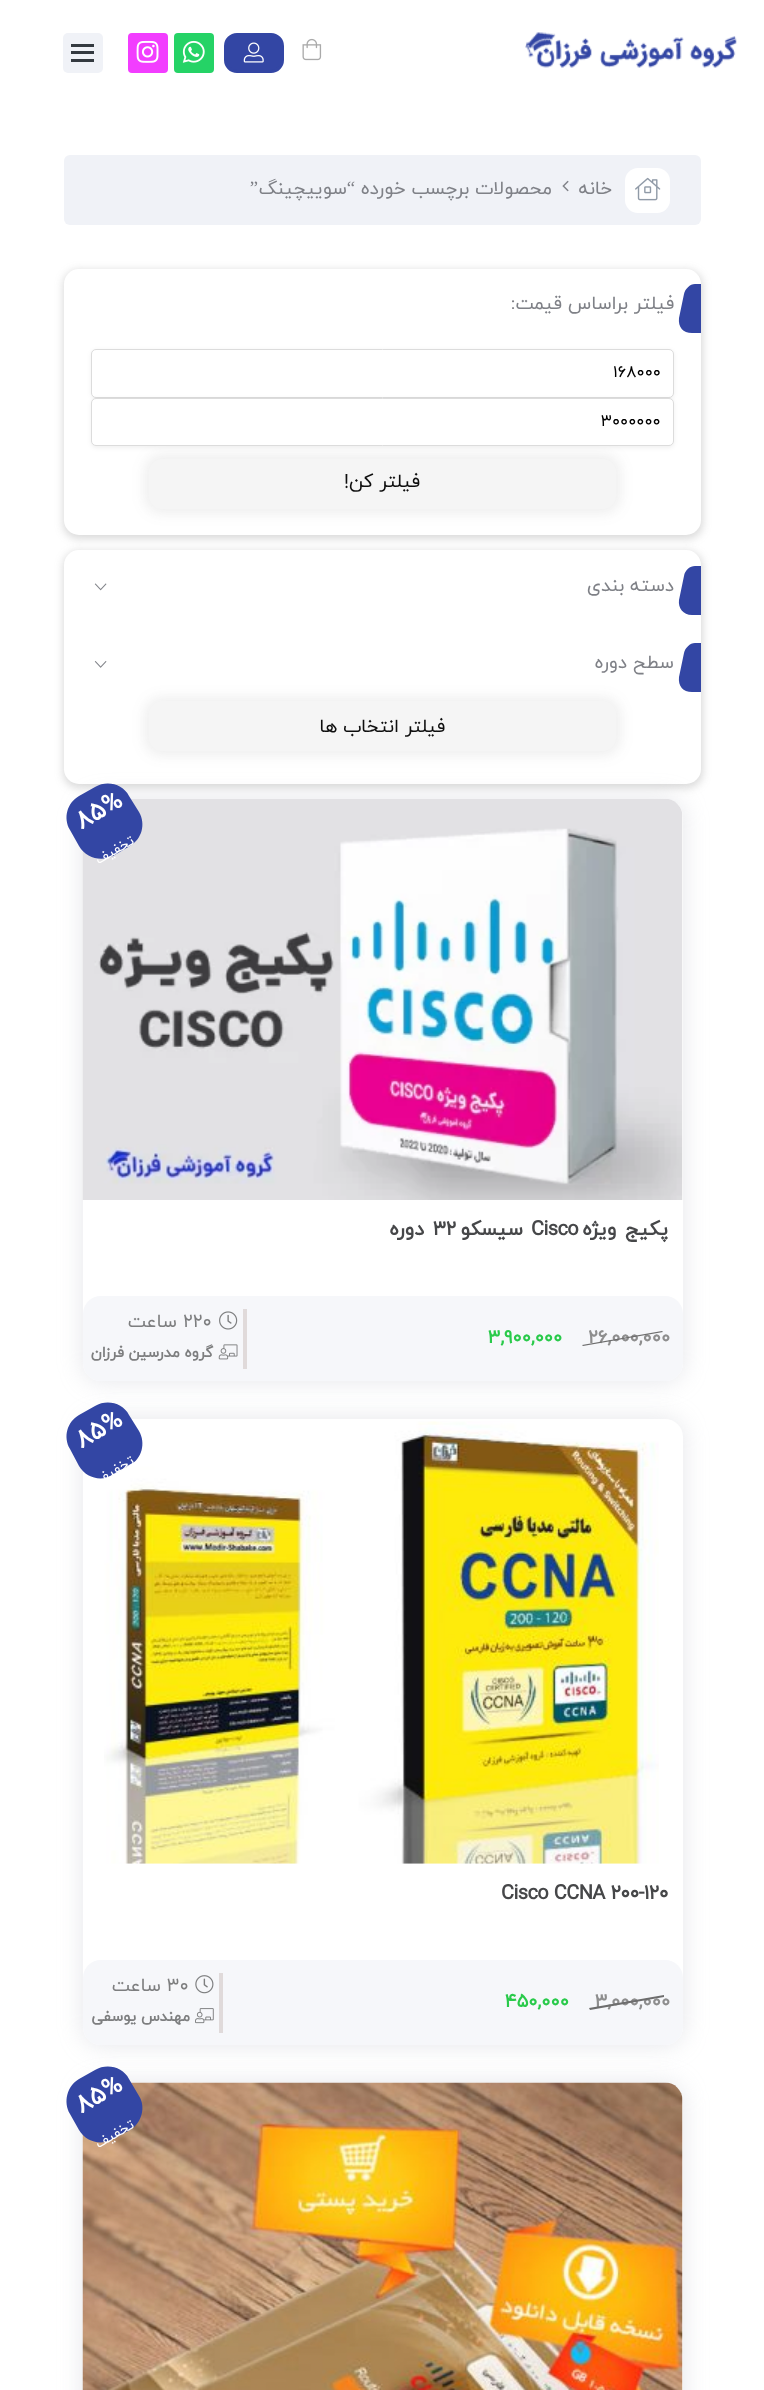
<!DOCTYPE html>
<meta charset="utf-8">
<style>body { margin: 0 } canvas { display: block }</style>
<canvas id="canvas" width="764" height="2390"></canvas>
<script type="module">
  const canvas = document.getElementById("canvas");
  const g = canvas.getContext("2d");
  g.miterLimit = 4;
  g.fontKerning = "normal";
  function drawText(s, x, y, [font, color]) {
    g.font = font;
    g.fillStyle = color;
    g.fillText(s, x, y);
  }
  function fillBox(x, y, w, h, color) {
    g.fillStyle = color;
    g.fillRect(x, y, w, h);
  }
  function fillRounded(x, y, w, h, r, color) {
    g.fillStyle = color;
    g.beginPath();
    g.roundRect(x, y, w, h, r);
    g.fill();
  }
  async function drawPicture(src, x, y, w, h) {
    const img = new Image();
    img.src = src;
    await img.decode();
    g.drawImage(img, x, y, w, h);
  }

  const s1 = ["18.75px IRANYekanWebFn", "#7F8187"];
  const s2 = ["18.75px Liberation Serif", "#7F8187"];
  const s3 = ["16.5px IRANYekanWebFn", "#000000"];
  const s4 = ["19px IRANYekanWebFn", "#0E0E0E"];
  const s5 = ["18.75px IRANYekanWebFn", "#0E0E0E"];
  const s6 = ["bold 20px IRANYekanWebFn", "#464749"];
  const s7 = ["bold 18.75px IRANYekanWebFn", "#8E8E8E"];
  const s8 = ["bold 18.75px IRANYekanWebFn", "#29CA4A"];
  const s9 = ["18.75px IRANYekanWebFn", "#7D7E7F"];
  const s10 = ["bold 15px IRANYekanWebFn", "#7D7E7F"];

  fillBox(0, 0, 764, 2390, "#FFFFFF");
  await drawPicture("pic1.png", 525, 32, 212, 36);
  await drawPicture("pic2.png", 302, 38, 20, 23);
  g.fillStyle = "#3346A4";
  g.beginPath();
  g.roundRect(225.5, 34.5, 57, 37, 11.5);
  g.fill();
  g.strokeStyle = "#3346A4";
  g.lineWidth = 3;
  g.stroke();
  await drawPicture("pic3.png", 243, 42, 21, 21);
  fillRounded(174, 33, 40, 40, 4, "#25D366");
  await drawPicture("pic4.png", 182, 40, 23, 23);
  fillRounded(128, 33, 40, 40, 4, "#F23DFF");
  await drawPicture("pic5.png", 136, 40, 23, 23);
  fillRounded(63, 33, 40, 40, 5, "#F0F2F7");
  fillBox(71, 51, 23, 3, "#343A40");
  fillBox(71, 44, 23, 3, "#343A40");
  fillBox(71, 59, 23, 3, "#343A40");
  fillRounded(64, 155, 637, 70, 6, "#F0F2F7");
  fillRounded(625, 168, 45, 45, 13, "#FFFFFF");
  await drawPicture("pic6.png", 635, 177, 26, 24);
  g.direction = "rtl";
  drawText("خانه", 612, 194, s1);
  await drawPicture("pic7.png", 562, 180, 7, 12);
  drawText("محصولات برچسب خورده", 552, 194, s1);
  drawText("“", 355, 194, s2);
  drawText("سوييچينگ", 347, 194, s1);
  drawText("”", 258, 194, s2);
  g.fillStyle = "rgba(108, 108, 108, 0.25)";
  g.filter = "blur(4.5px)";
  g.beginPath();
  g.roundRect(63, 270, 640, 269, 16);
  g.fill();
  g.filter = "none";
  fillRounded(64, 269, 637, 266, 15, "#FFFFFF");
  g.fillStyle = "#3346A4";
  g.beginPath();
  g.moveTo(695, 284);
  g.bezierCurveTo(690, 284, 685, 289, 684, 294);
  g.lineTo(679, 318);
  g.bezierCurveTo(678, 327, 683, 333, 692, 333);
  g.lineTo(701, 333);
  g.lineTo(701, 284);
  g.closePath();
  g.fill();
  drawText("فیلتر براساس قیمت:", 674, 309, s1);
  g.fillStyle = "rgba(0, 0, 0, 0.06)";
  g.filter = "blur(2px)";
  g.beginPath();
  g.roundRect(91, 350, 583, 49, 5);
  g.fill();
  g.filter = "none";
  g.fillStyle = "#FFFFFF";
  g.beginPath();
  g.roundRect(91.5, 349.5, 582, 48, 4.5);
  g.fill();
  g.strokeStyle = "#DCDCDC";
  g.lineWidth = 1;
  g.stroke();
  g.direction = "ltr";
  drawText("168000", 613, 377, s3);
  g.fillStyle = "rgba(0, 0, 0, 0.06)";
  g.filter = "blur(2px)";
  g.beginPath();
  g.roundRect(91, 399, 583, 49, 5);
  g.fill();
  g.filter = "none";
  g.fillStyle = "rgba(82, 82, 82, 0.1)";
  g.filter = "blur(7px)";
  g.beginPath();
  g.roundRect(145, 455, 475, 58, 16);
  g.fill();
  g.filter = "none";
  g.fillStyle = "#FFFFFF";
  g.beginPath();
  g.roundRect(91.5, 398.5, 582, 47, 4.5);
  g.fill();
  g.stroke();
  drawText("3000000", 601, 426, s3);
  fillRounded(149, 459, 467, 50, 13, "#F5F5F5");
  g.direction = "rtl";
  drawText("فیلتر کن!", 420, 487, s4);
  g.fillStyle = "rgba(108, 108, 108, 0.25)";
  g.filter = "blur(4.5px)";
  g.beginPath();
  g.roundRect(63, 551, 640, 237, 16);
  g.fill();
  g.filter = "none";
  fillRounded(64, 550, 637, 234, 15, "#FFFFFF");
  g.fillStyle = "#3346A4";
  g.beginPath();
  g.moveTo(695, 566);
  g.lineTo(701, 566);
  g.lineTo(701, 615);
  g.lineTo(692, 615);
  g.bezierCurveTo(683, 615, 678, 608, 679, 600);
  g.lineTo(684, 576);
  g.bezierCurveTo(685, 570, 690, 566, 695, 566);
  g.closePath();
  g.fill();
  drawText("دسته بندی", 674, 591, s1);
  await drawPicture("pic8.png", 94, 583, 13, 8);
  g.fillStyle = "#3346A4";
  g.beginPath();
  g.moveTo(695, 643);
  g.lineTo(701, 643);
  g.lineTo(701, 692);
  g.lineTo(692, 692);
  g.bezierCurveTo(683, 692, 678, 686, 679, 677);
  g.lineTo(684, 653);
  g.bezierCurveTo(685, 648, 690, 643, 695, 643);
  g.closePath();
  g.fill();
  drawText("سطح دوره", 674, 668, s1);
  await drawPicture("pic9.png", 94, 661, 13, 7);
  g.fillStyle = "rgba(82, 82, 82, 0.1)";
  g.filter = "blur(7px)";
  g.beginPath();
  g.roundRect(145, 698, 475, 57, 16);
  g.fill();
  g.filter = "none";
  fillRounded(149, 701, 467, 50, 13, "#F5F5F5");
  drawText("فیلتر انتخاب ها", 445, 732, s5);
  g.fillStyle = "rgba(168, 172, 185, 0.3)";
  g.filter = "blur(12px)";
  g.beginPath();
  g.roundRect(83, 799, 600, 582, 18);
  g.fill();
  g.filter = "none";
  fillRounded(83, 799, 600, 582, 18, "#FFFFFF");
  await drawPicture("pic10.png", 82, 799, 601, 401);
  g.fillStyle = "#3346A4";
  g.beginPath();
  g.moveTo(79, 796);
  g.lineTo(95, 787);
  g.bezierCurveTo(107, 780, 123, 784, 129, 796);
  g.lineTo(139, 812);
  g.bezierCurveTo(146, 824, 142, 839, 130, 846);
  g.lineTo(113, 856);
  g.bezierCurveTo(101, 862, 86, 858, 79, 846);
  g.lineTo(70, 830);
  g.bezierCurveTo(63, 818, 67, 803, 79, 796);
  g.closePath();
  g.fill();
  g.direction = "ltr";
  g.font = "bold 25px IRANYekanWebFn";
  g.fillStyle = "#FFFFFF";
  g.save();
  g.translate(81, 830);
  g.rotate(-30 * Math.PI / 180);
  g.fillText("85%", 0, 0);
  g.restore();
  g.direction = "rtl";
  g.font = "14px IRANYekanWebFn";
  g.save();
  g.translate(135, 843);
  g.rotate(-30 * Math.PI / 180);
  g.fillText("تخفیف", 0, 0);
  g.restore();
  g.letterSpacing = "-0.6px";
  g.wordSpacing = "3px";
  drawText("پکیج ویژه", 668, 1235, s6);
  g.wordSpacing = "0px";
  g.direction = "ltr";
  drawText("Cisco", 531, 1235, s6);
  g.direction = "rtl";
  drawText("سیسکو", 523, 1235, s6);
  g.direction = "ltr";
  drawText("32", 433, 1235, s6);
  g.direction = "rtl";
  drawText("دوره", 424, 1235, s6);
  fillRounded(83, 1296, 600, 85, 18, "#F6F7FA");
  g.letterSpacing = "0px";
  g.direction = "ltr";
  drawText("26,000,000", 588, 1343, s7);
  g.fillStyle = "#6D6D6D";
  g.beginPath();
  g.moveTo(582, 1345);
  g.lineTo(662, 1331);
  g.lineTo(663, 1332);
  g.lineTo(583, 1346);
  g.closePath();
  g.fill();
  drawText("3,900,000", 488, 1343, s8);
  fillBox(243, 1309, 4, 60, "#E0DADA");
  await drawPicture("pic11.png", 219, 1311, 19, 19);
  drawText("220", 183, 1327, s9);
  g.direction = "rtl";
  drawText("ساعت", 177, 1327, s9);
  await drawPicture("pic12.png", 218, 1344, 20, 16);
  drawText("گروه مدرسین فرزان", 213, 1357, s10);
  g.fillStyle = "rgba(168, 172, 185, 0.3)";
  g.filter = "blur(12px)";
  g.beginPath();
  g.roundRect(83, 1419, 600, 626, 18);
  g.fill();
  g.filter = "none";
  fillRounded(83, 1419, 600, 626, 18, "#FFFFFF");
  await drawPicture("pic13.png", 104, 1421, 555, 443);
  g.fillStyle = "#3346A4";
  g.beginPath();
  g.moveTo(79, 1415);
  g.lineTo(95, 1406);
  g.bezierCurveTo(107, 1399, 123, 1403, 129, 1415);
  g.lineTo(139, 1431);
  g.bezierCurveTo(146, 1443, 142, 1459, 130, 1465);
  g.lineTo(113, 1475);
  g.bezierCurveTo(101, 1482, 86, 1478, 79, 1466);
  g.lineTo(70, 1449);
  g.bezierCurveTo(63, 1437, 67, 1422, 79, 1415);
  g.closePath();
  g.fill();
  g.direction = "ltr";
  g.font = "bold 25px IRANYekanWebFn";
  g.fillStyle = "#FFFFFF";
  g.save();
  g.translate(81, 1449);
  g.rotate(-30 * Math.PI / 180);
  g.fillText("85%", 0, 0);
  g.restore();
  g.direction = "rtl";
  g.font = "14px IRANYekanWebFn";
  g.save();
  g.translate(135, 1463);
  g.rotate(-30 * Math.PI / 180);
  g.fillText("تخفیف", 0, 0);
  g.restore();
  g.letterSpacing = "-0.6px";
  g.direction = "ltr";
  drawText("Cisco CCNA 200-120", 501, 1899, s6);
  fillRounded(83, 1960, 600, 85, 18, "#F6F7FA");
  g.letterSpacing = "0px";
  drawText("3,000,000", 595, 2007, s7);
  g.fillStyle = "#6D6D6D";
  g.beginPath();
  g.moveTo(589, 2008);
  g.lineTo(664, 1995);
  g.lineTo(664, 1997);
  g.lineTo(590, 2010);
  g.closePath();
  g.fill();
  drawText("450,000", 505, 2007, s8);
  fillBox(219, 1973, 4, 60, "#E0DADA");
  await drawPicture("pic14.png", 195, 1975, 19, 19);
  drawText("30", 167, 1991, s9);
  g.direction = "rtl";
  drawText("ساعت", 161, 1991, s9);
  await drawPicture("pic15.png", 195, 2008, 19, 16);
  drawText("مهندس یوسفی", 190, 2021, s10);
  g.fillStyle = "rgba(168, 172, 185, 0.3)";
  g.filter = "blur(12px)";
  g.beginPath();
  g.roundRect(83, 2083, 600, 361, 18);
  g.fill();
  g.filter = "none";
  fillRounded(83, 2083, 600, 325, 18, "#FFFFFF");
  await drawPicture("pic16.png", 82, 2082, 601, 308);
  g.fillStyle = "#3346A4";
  g.beginPath();
  g.moveTo(79, 2079);
  g.lineTo(95, 2070);
  g.bezierCurveTo(107, 2063, 123, 2067, 129, 2079);
  g.lineTo(139, 2096);
  g.bezierCurveTo(146, 2107, 142, 2123, 130, 2130);
  g.lineTo(113, 2139);
  g.bezierCurveTo(101, 2146, 86, 2142, 79, 2130);
  g.lineTo(70, 2114);
  g.bezierCurveTo(63, 2102, 67, 2086, 79, 2079);
  g.closePath();
  g.fill();
  g.direction = "ltr";
  g.font = "bold 25px IRANYekanWebFn";
  g.fillStyle = "#FFFFFF";
  g.save();
  g.translate(81, 2114);
  g.rotate(-30 * Math.PI / 180);
  g.fillText("85%", 0, 0);
  g.restore();
  g.direction = "rtl";
  g.font = "14px IRANYekanWebFn";
  g.save();
  g.translate(135, 2127);
  g.rotate(-30 * Math.PI / 180);
  g.fillText("تخفیف", 0, 0);
  g.restore();
</script>
